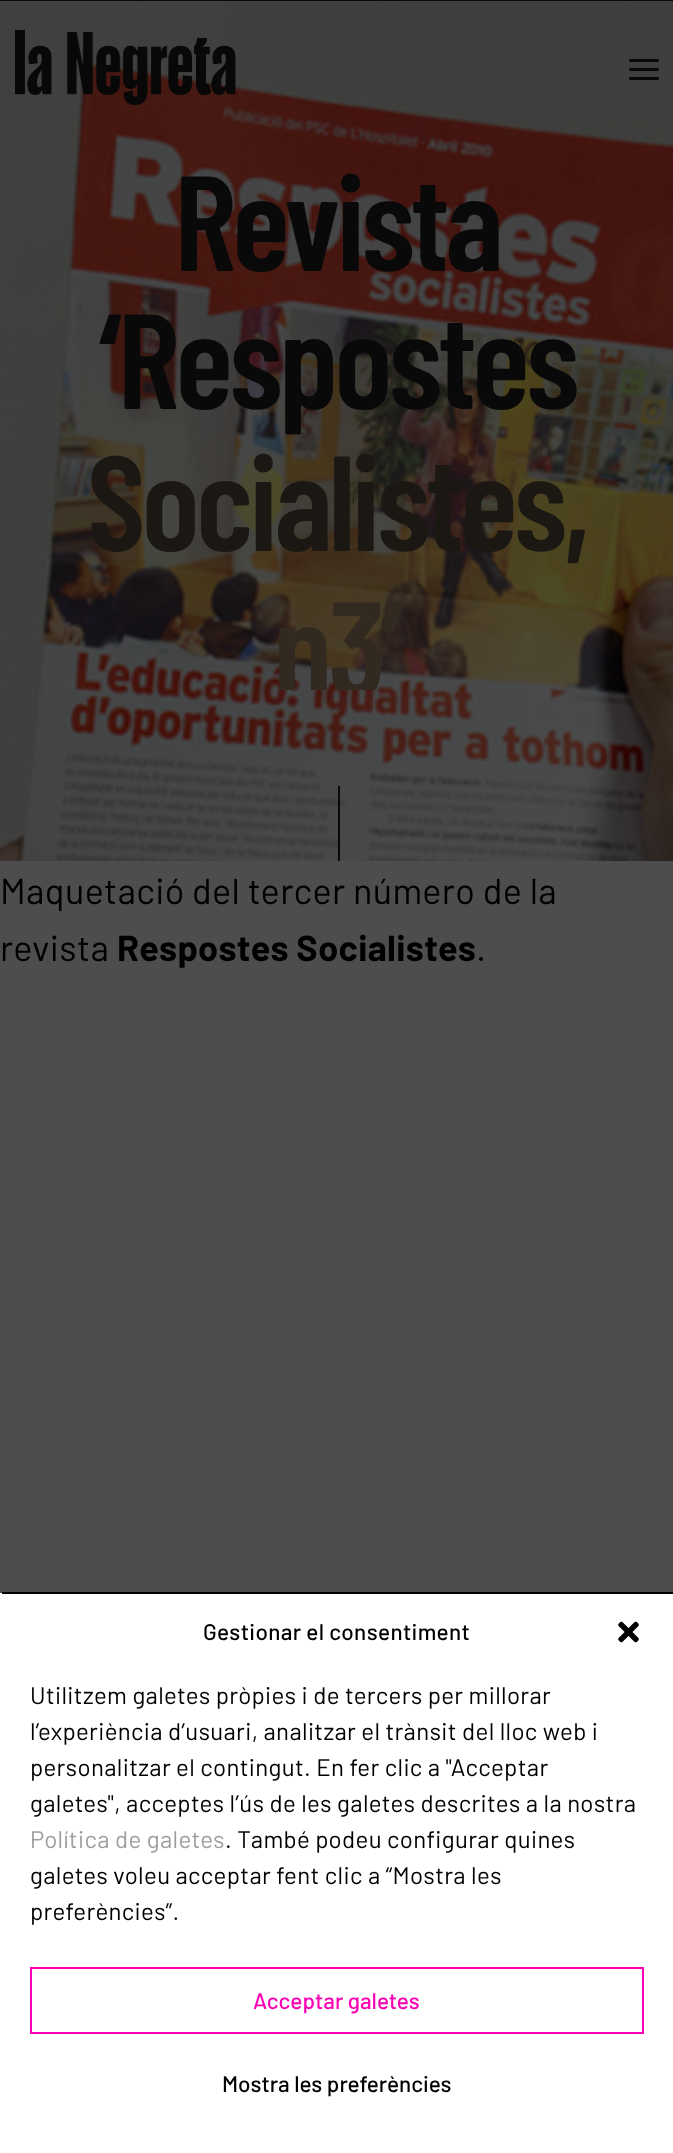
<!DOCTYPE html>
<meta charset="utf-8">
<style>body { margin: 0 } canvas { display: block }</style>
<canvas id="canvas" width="673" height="2153"></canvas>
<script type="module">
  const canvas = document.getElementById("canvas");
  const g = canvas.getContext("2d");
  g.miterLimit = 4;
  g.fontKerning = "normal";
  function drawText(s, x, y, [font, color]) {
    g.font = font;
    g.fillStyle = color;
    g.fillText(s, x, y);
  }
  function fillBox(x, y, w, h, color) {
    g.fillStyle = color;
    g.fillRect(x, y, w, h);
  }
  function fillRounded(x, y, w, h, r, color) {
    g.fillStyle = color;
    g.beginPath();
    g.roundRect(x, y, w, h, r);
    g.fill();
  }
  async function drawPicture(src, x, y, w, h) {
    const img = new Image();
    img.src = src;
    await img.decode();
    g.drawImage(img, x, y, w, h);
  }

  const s1 = ["600 135px Barlow Condensed", "#090909"];
  const s2 = ["600 135px Barlow Condensed", "#1B1814"];
  const s3 = ["600 135px Barlow Condensed", "#322920"];
  const s4 = ["36px Barlow", "#000000"];
  const s5 = ["bold 36px Barlow", "#000000"];
  const s6 = ["500 22.5px Barlow", "#000000"];
  const s7 = ["24px Barlow", "#000000"];
  const s8 = ["24px Barlow", "#9E9E9E"];
  const s9 = ["500 22.5px Barlow", "#FC00B4"];

  fillBox(0, 0, 673, 2153, "#4D4D4D");
  await drawPicture("pic2.png", 0, 1, 673, 860);
  await drawPicture("pic1.png", 15, 30, 221, 75);
  fillRounded(629, 59, 30, 3, 1.5, "#090909");
  fillRounded(629, 68, 30, 3, 1.5, "#090909");
  fillRounded(629, 77, 30, 3, 1.5, "#090909");
  fillBox(0, 0, 673, 1, "#090909");
  g.letterSpacing = "-4px";
  drawText("Revista", 174, 271, s1);
  drawText("‘Respostes", 99, 409, s1);
  drawText("Socialistes,", 87, 551, s2);
  g.save();
  g.beginPath();
  g.rect(87, 150, 500, 540);
  g.clip();
  drawText("n3’", 273, 697, s3);
  g.restore();
  fillBox(338, 786, 2, 75, "#090909");
  g.letterSpacing = "0.35px";
  drawText("Maquetació del tercer número de la", 0, 904, s4);
  drawText("revista", 0, 961, s4);
  drawText("Respostes Socialistes", 117, 961, s5);
  drawText(".", 476, 961, s4);
  g.fillStyle = "#FFFFFF";
  g.beginPath();
  g.moveTo(2, 1593);
  g.lineTo(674, 1593);
  g.lineTo(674, 2152);
  g.bezierCurveTo(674, 2153, 673, 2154, 672, 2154);
  g.lineTo(2, 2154);
  g.bezierCurveTo(1, 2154, 0, 2153, 0, 2152);
  g.lineTo(0, 1593);
  g.closePath();
  g.fill();
  fillBox(2, 1592, 671, 2, "#000000");
  drawText("Gestionar el consentiment", 203, 1640, s6);
  await drawPicture("pic3.png", 618, 1621, 21, 22);
  drawText("Utilitzem galetes pròpies i de tercers per millorar", 30, 1704, s7);
  drawText("l’experiència d’usuari, analitzar el trànsit del lloc web i", 30, 1740, s7);
  drawText("personalitzar el contingut. En fer clic a \"Acceptar", 30, 1776, s7);
  drawText("galetes\", acceptes l’ús de les galetes descrites a la nostra", 30, 1812, s7);
  drawText("Política de galetes", 30, 1848, s8);
  drawText(". També podeu configurar quines", 225, 1848, s7);
  drawText("galetes voleu acceptar fent clic a “Mostra les", 30, 1884, s7);
  drawText("preferències”.", 30, 1920, s7);
  g.strokeStyle = "#FC00B4";
  g.lineWidth = 2;
  g.strokeRect(31, 1968, 612, 65);
  g.letterSpacing = "0px";
  drawText("Acceptar galetes", 253, 2009, s9);
  drawText("Mostra les preferències", 222, 2092, s6);
</script>
